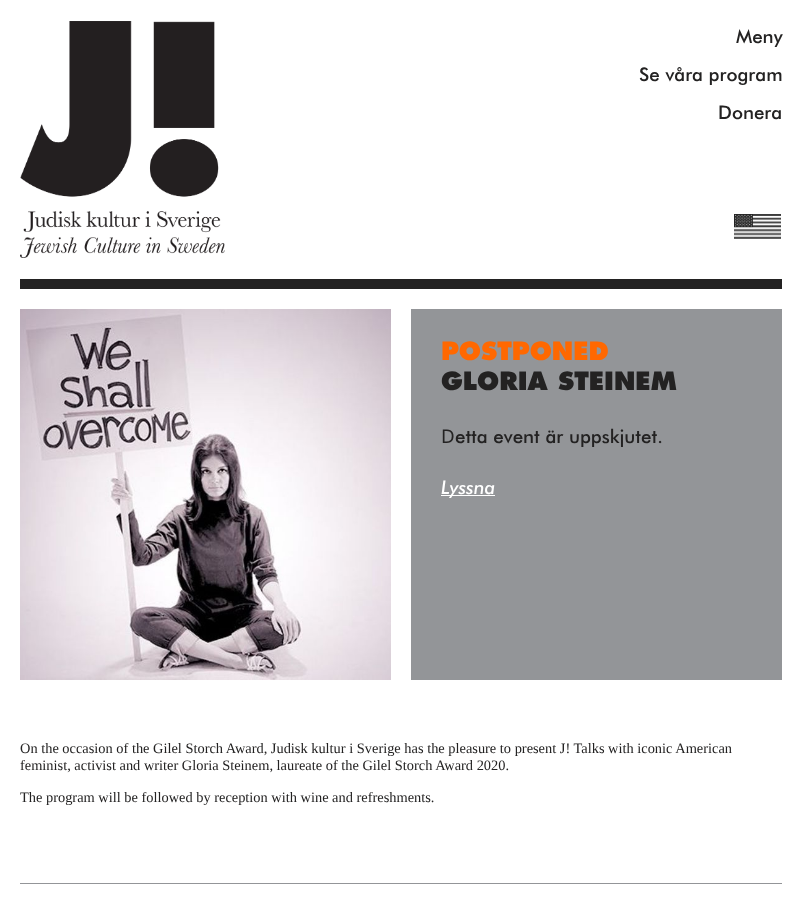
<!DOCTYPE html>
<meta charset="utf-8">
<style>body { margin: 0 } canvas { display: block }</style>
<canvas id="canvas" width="802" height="898"></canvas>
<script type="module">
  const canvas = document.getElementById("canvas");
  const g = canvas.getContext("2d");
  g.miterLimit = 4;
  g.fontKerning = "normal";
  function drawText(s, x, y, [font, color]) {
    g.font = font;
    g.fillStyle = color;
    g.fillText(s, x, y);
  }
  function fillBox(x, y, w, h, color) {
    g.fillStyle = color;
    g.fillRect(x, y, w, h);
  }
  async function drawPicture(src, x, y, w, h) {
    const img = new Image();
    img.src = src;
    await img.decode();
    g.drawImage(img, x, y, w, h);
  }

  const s1 = ["500 18.75px Futura", "#232222"];
  const s2 = ["800 24.5px Futura", "#FF6800"];
  const s3 = ["800 24.5px Futura", "#232222"];
  const s4 = ["18.75px Noto Sans", "#232222"];
  const s5 = ["italic 500 18.75px Futura", "#FFFFFF"];
  const s6 = ["14.4px Liberation Serif", "#232222"];

  fillBox(0, 0, 802, 898, "#FFFFFF");
  await drawPicture("pic1.png", 20, 21, 205, 237);
  fillBox(20, 279, 762, 10, "#232222");
  drawText("Meny", 736, 43, s1);
  drawText("Se våra program", 639, 81, s1);
  drawText("Donera", 718, 119, s1);
  await drawPicture("pic2.png", 734, 214, 47, 25);
  await drawPicture("pic3.png", 20, 309, 371, 371);
  fillBox(411, 309, 371, 371, "#939598");
  drawText("POSTPONED", 441, 360, s2);
  drawText("GLORIA STEINEM", 441, 390, s3);
  drawText("D", 441, 443, s4);
  drawText("etta event är uppskjutet.", 455, 443, s1);
  fillBox(441, 495, 54, 1, "#FFFFFF");
  drawText("Lyssna", 441, 494, s5);
  fillBox(20, 883, 762, 1, "#939598");
  drawText("On the occasion of the Gilel Storch Award, Judisk kultur i Sverige has the pleasure to present J! Talks with iconic American", 20, 753, s6);
  drawText("feminist, activist and writer Gloria Steinem, laureate of the Gilel Storch Award 2020.", 20, 770, s6);
  drawText("The program will be followed by reception with wine and refreshments.", 20, 802, s6);
</script>
